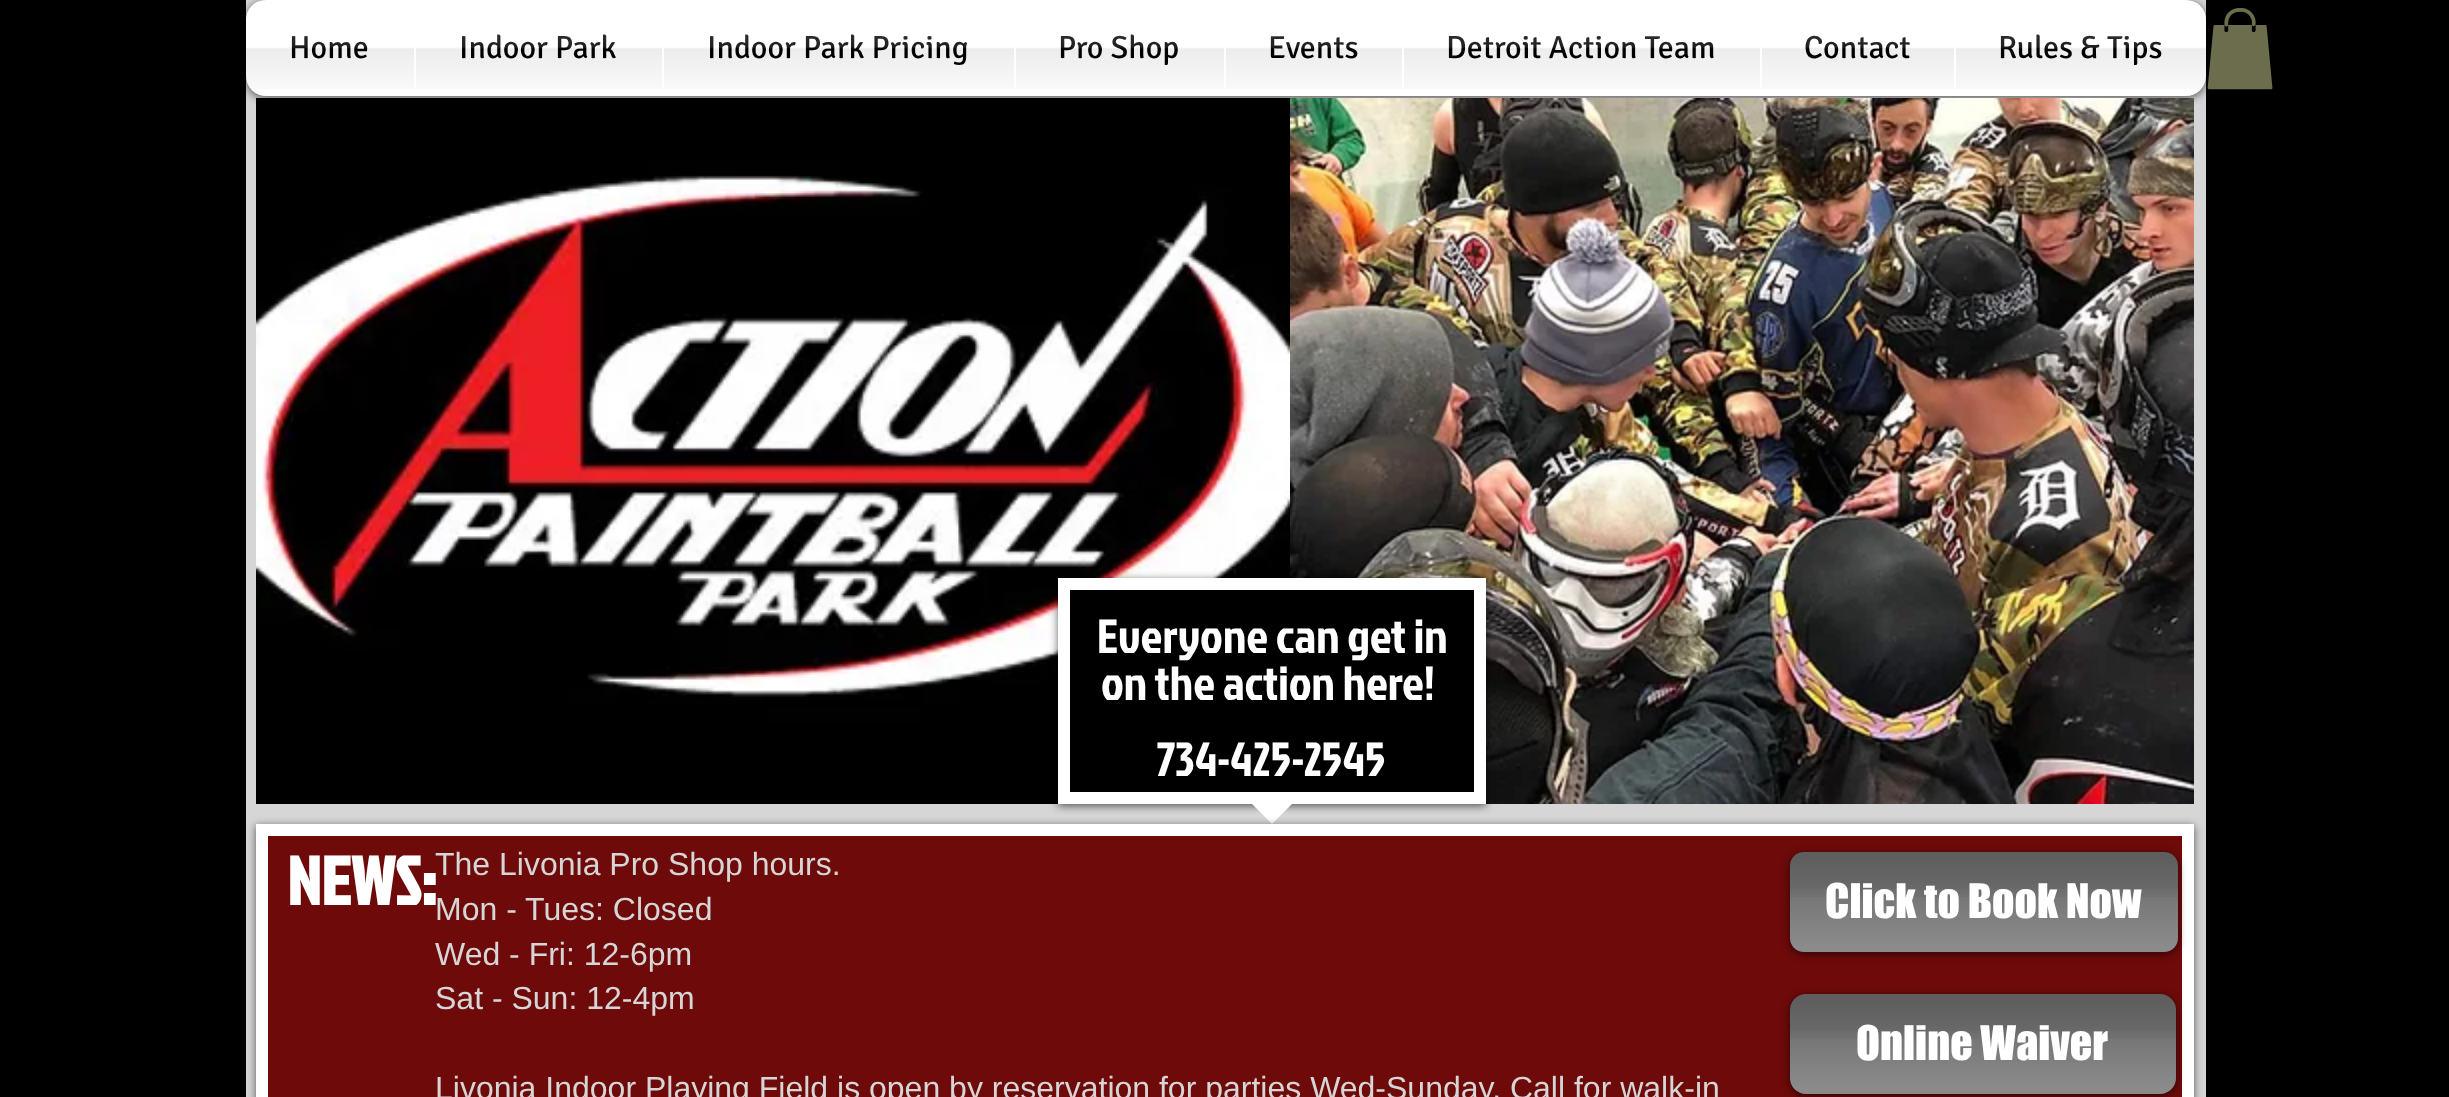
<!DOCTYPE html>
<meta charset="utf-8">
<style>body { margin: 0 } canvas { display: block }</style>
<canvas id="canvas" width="2449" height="1097"></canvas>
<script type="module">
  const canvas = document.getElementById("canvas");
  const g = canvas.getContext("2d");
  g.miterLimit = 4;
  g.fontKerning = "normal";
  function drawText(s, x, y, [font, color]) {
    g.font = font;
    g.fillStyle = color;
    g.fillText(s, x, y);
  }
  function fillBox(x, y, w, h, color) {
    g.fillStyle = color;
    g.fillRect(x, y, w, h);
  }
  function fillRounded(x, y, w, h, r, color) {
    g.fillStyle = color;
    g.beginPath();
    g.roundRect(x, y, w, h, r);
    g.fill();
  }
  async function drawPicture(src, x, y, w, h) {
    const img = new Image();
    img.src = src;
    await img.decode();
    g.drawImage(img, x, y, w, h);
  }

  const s1 = ["32px Signika", "#000000"];
  const s2 = ["48px Jockey One", "#FFFFFF"];
  const s3 = ["bold 68px Jockey One", "#FFFFFF"];
  const s4 = ["32px Liberation Sans", "#D6D6D6"];
  const s5 = ["44px 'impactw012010'", "#FFFFFF"];

  fillBox(0, 0, 2449, 1097, "#000000");
  fillBox(246, 0, 1960, 1097, "#D6D6D6");
  g.fillStyle = "rgba(0, 0, 0, 0.6)";
  g.filter = "blur(4px)";
  g.beginPath();
  g.roundRect(246, 2, 1960, 96, 20);
  g.fill();
  g.filter = "none";
  await drawPicture("pic1.png", 246, 1, 1960, 86);
  g.fillStyle = "#FFFFFF";
  g.beginPath();
  g.roundRect(246, 0, 168, 96, [20, 0, 0, 20]);
  g.fill();
  drawText("Home", 289, 58, s1);
  await drawPicture("pic2.png", 246, 2, 168, 87);
  fillBox(414, 0, 1540, 96, "#FFFFFF");
  drawText("Indoor Park", 459, 58, s1);
  await drawPicture("pic3.png", 416, 34, 246, 55);
  drawText("Indoor Park Pricing", 707, 58, s1);
  await drawPicture("pic4.png", 664, 34, 350, 55);
  drawText("Pro Shop", 1058, 58, s1);
  await drawPicture("pic5.png", 1016, 34, 208, 55);
  drawText("Events", 1268, 58, s1);
  await drawPicture("pic6.png", 1226, 36, 176, 53);
  drawText("Detroit Action Team", 1446, 58, s1);
  await drawPicture("pic7.png", 1404, 36, 356, 53);
  drawText("Contact", 1804, 58, s1);
  await drawPicture("pic8.png", 1762, 35, 192, 54);
  g.fillStyle = "#FFFFFF";
  g.beginPath();
  g.roundRect(1954, 0, 252, 96, [0, 20, 20, 0]);
  g.fill();
  drawText("Rules & Tips", 1998, 58, s1);
  await drawPicture("pic9.png", 1956, 3, 250, 86);
  await drawPicture("pic10.png", 2207, 8, 66, 82);
  await drawPicture("pic11.png", 256, 98, 1034, 706);
  await drawPicture("pic12.png", 1290, 98, 904, 706);
  g.fillStyle = "rgba(0, 0, 0, 0.6)";
  g.filter = "blur(4px)";
  g.beginPath();
  g.rect(1058, 580, 428, 226);
  g.fill();
  g.filter = "none";
  g.fillStyle = "#000000";
  g.beginPath();
  g.rect(1064, 584, 416, 214);
  g.fill();
  g.strokeStyle = "#FFFFFF";
  g.lineWidth = 12;
  g.stroke();
  drawText("Everyone can get in", 1097, 653, s2);
  drawText("on the action here!", 1101, 700, s2);
  drawText("734-425-2545", 1157, 776, s2);
  g.beginPath();
  g.moveTo(1252, 804);
  g.lineTo(1292, 804);
  g.lineTo(1272, 824);
  g.closePath();
  g.fill();
  g.fillStyle = "rgba(0, 0, 0, 0.6)";
  g.filter = "blur(4px)";
  g.beginPath();
  g.rect(256, 826, 1938, 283);
  g.fill();
  g.filter = "none";
  g.fillStyle = "#6F0A0A";
  g.beginPath();
  g.rect(262, 830, 1926, 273);
  g.fill();
  g.stroke();
  drawText("NEWS:", 287, 905, s3);
  drawText("The Livonia Pro Shop hours.", 435, 875, s4);
  drawText("Mon - Tues: Closed", 435, 920, s4);
  drawText("Wed - Fri: 12-6pm", 435, 965, s4);
  drawText("Sat - Sun: 12-4pm", 435, 1009, s4);
  drawText("Livonia Indoor Playing Field is open by reservation for parties Wed-Sunday. Call for walk-in", 435, 1099, s4);
  g.fillStyle = "rgba(0, 0, 0, 0.6)";
  g.filter = "blur(4px)";
  g.beginPath();
  g.roundRect(1790, 854, 388, 100, 14);
  g.fill();
  g.filter = "none";
  fillRounded(1790, 852, 388, 100, 14, "#717070");
  await drawPicture("pic13.png", 1790, 852, 388, 45);
  await drawPicture("pic14.png", 1790, 889, 388, 63);
  drawText("Click to Book Now", 1825, 918, s5);
  g.fillStyle = "rgba(0, 0, 0, 0.6)";
  g.filter = "blur(4px)";
  g.beginPath();
  g.roundRect(1790, 996, 386, 100, 16);
  g.fill();
  g.filter = "none";
  fillRounded(1790, 994, 386, 100, 16, "#717070");
  await drawPicture("pic15.png", 1790, 994, 386, 45);
  await drawPicture("pic16.png", 1790, 1031, 386, 63);
  drawText("Online Waiver", 1856, 1060, s5);
</script>
